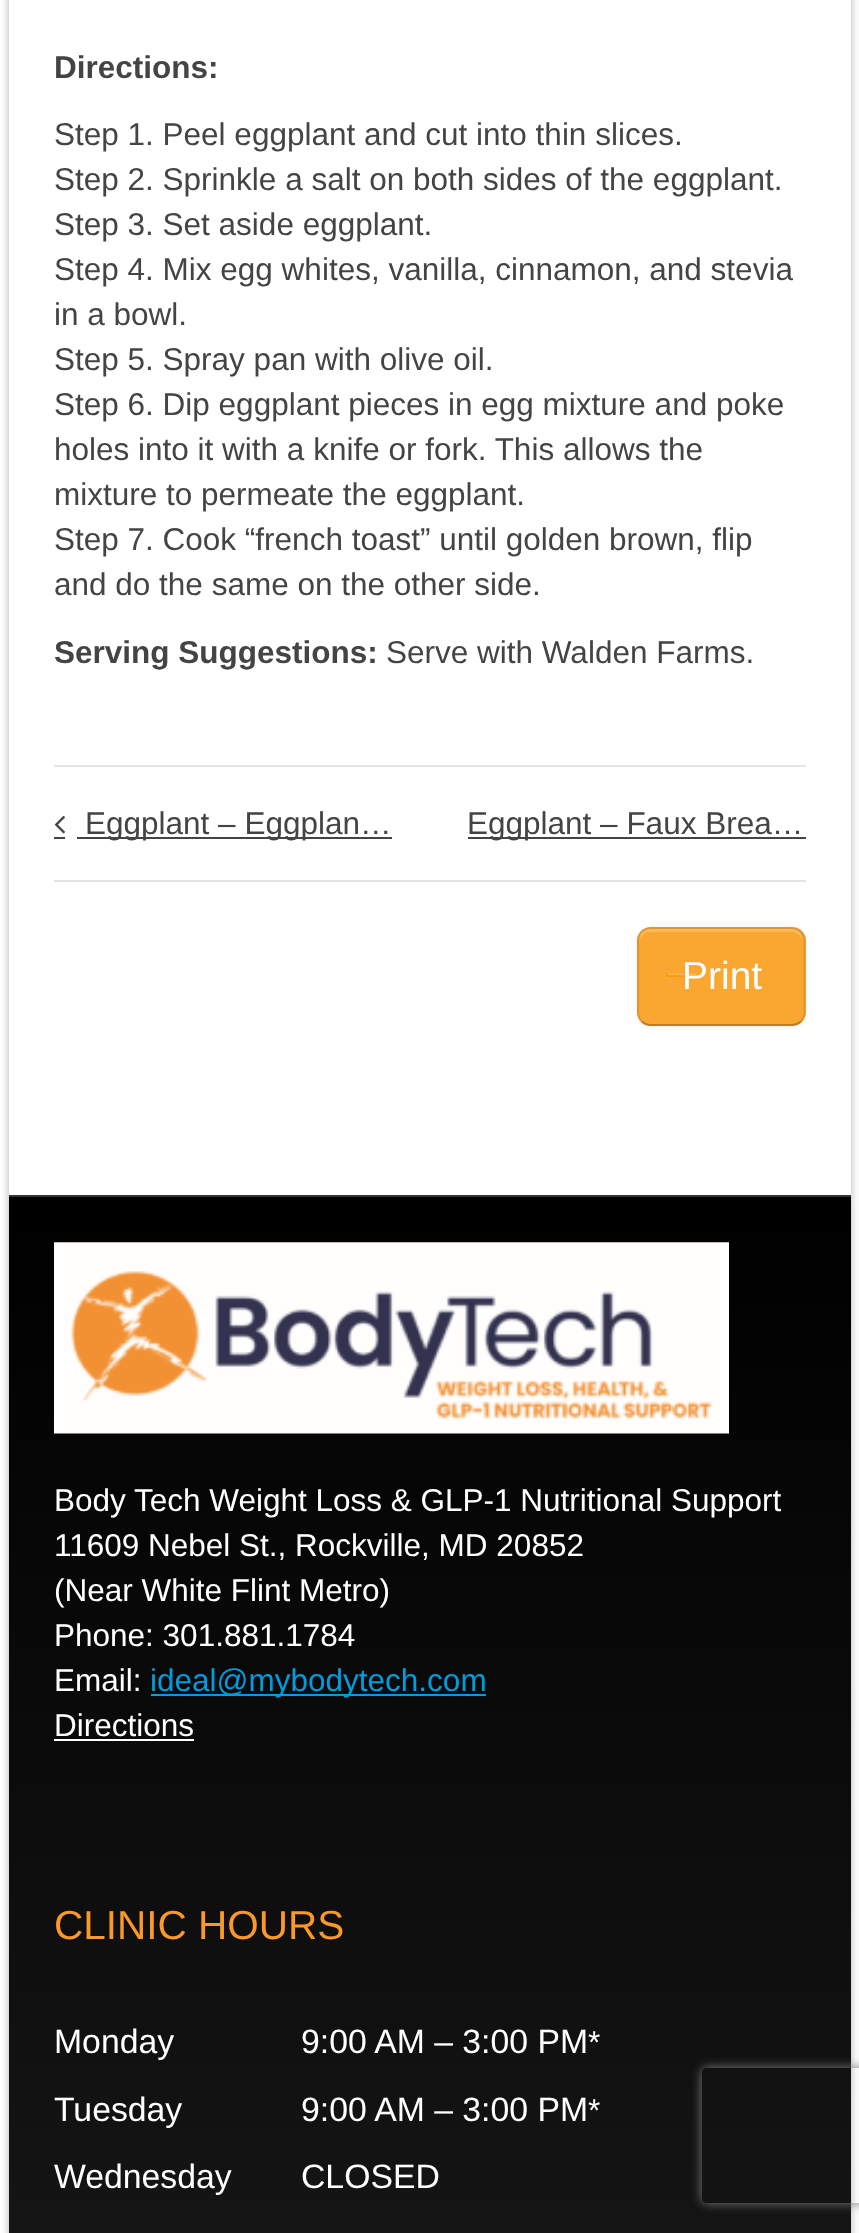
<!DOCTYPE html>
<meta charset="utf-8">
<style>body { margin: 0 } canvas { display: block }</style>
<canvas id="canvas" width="859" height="2233"></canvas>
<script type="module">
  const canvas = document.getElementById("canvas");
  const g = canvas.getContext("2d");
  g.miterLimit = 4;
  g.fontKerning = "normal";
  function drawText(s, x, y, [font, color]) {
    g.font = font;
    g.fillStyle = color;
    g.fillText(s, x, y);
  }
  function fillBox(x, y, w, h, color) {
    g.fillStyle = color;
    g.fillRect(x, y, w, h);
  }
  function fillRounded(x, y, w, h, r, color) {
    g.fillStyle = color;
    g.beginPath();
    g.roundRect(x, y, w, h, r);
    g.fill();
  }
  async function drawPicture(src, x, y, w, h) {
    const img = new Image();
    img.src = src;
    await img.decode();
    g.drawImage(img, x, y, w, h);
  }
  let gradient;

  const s1 = ["bold 31.5px Liberation Sans", "#444444"];
  const s2 = ["31.5px Liberation Sans", "#444444"];
  const s3 = ["39px Liberation Sans", "#FFFFFF"];
  const s4 = ["31.5px Liberation Sans", "#FFFFFF"];
  const s5 = ["31.5px Liberation Sans", "#009CDD"];
  const s6 = ["40.5px Liberation Sans", "#FA9829"];
  const s7 = ["33.75px Liberation Sans", "#FFFFFF"];

  fillBox(0, 0, 859, 2233, "#FFFFFF");
  g.fillStyle = "rgba(0, 0, 0, 0.3)";
  g.filter = "blur(4.5px)";
  g.beginPath();
  g.rect(9, -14, 842, 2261);
  g.fill();
  g.filter = "none";
  fillBox(9, 0, 842, 1195, "#FFFFFF");
  drawText("Directions:", 54, 78, s1);
  drawText("Step 1. Peel eggplant and cut into thin slices.", 54, 145, s2);
  drawText("Step 2. Sprinkle a salt on both sides of the eggplant.", 54, 190, s2);
  drawText("Step 3. Set aside eggplant.", 54, 235, s2);
  drawText("Step 4. Mix egg whites, vanilla, cinnamon, and stevia", 54, 280, s2);
  drawText("in a bowl.", 54, 325, s2);
  drawText("Step 5. Spray pan with olive oil.", 54, 370, s2);
  drawText("Step 6. Dip eggplant pieces in egg mixture and poke", 54, 415, s2);
  drawText("holes into it with a knife or fork. This allows the", 54, 460, s2);
  drawText("mixture to permeate the eggplant.", 54, 505, s2);
  drawText("Step 7. Cook “french toast” until golden brown, flip", 54, 550, s2);
  drawText("and do the same on the other side.", 54, 595, s2);
  drawText("Serving Suggestions:", 54, 663, s1);
  drawText("Serve with Walden Farms.", 386, 663, s2);
  fillBox(54, 765, 752, 2, "#E4E4E4");
  fillBox(54, 880, 752, 2, "#E4E4E4");
  fillBox(54, 837, 11, 2, "#444444");
  await drawPicture("pic1.png", 54, 815, 11, 19);
  fillBox(77, 837, 315, 2, "#444444");
  drawText("Eggplant – Eggplan…", 85, 834, s2);
  fillBox(468, 837, 338, 2, "#444444");
  drawText("Eggplant – Faux Brea…", 467, 834, s2);
  g.fillStyle = "rgba(0, 0, 0, 0.05)";
  g.filter = "blur(2px)";
  g.beginPath();
  g.roundRect(637, 929, 169, 99, 14);
  g.fill();
  g.filter = "none";
  fillRounded(637, 927, 169, 99, 14, "#FAA732");
  await drawPicture("pic2.png", 666, 973, 34, 4);
  g.fillStyle = "#FBB95B";
  g.beginPath();
  g.moveTo(650, 932);
  g.lineTo(792, 932);
  g.bezierCurveTo(798, 932, 803, 937, 803, 943);
  g.lineTo(803, 940);
  g.bezierCurveTo(803, 934, 798, 929, 792, 929);
  g.lineTo(650, 929);
  g.bezierCurveTo(644, 929, 639, 934, 639, 940);
  g.lineTo(639, 943);
  g.bezierCurveTo(639, 937, 644, 932, 650, 932);
  g.closePath();
  g.fill();
  g.beginPath();
  g.moveTo(801, 1021.5);
  g.bezierCurveTo(798.5, 1023.5, 795.5, 1025, 792, 1025);
  g.lineTo(650, 1025);
  g.bezierCurveTo(647, 1025, 644, 1023.5, 641.5, 1021.5);
  g.strokeStyle = "rgba(0, 0, 0, 0.25)";
  g.lineWidth = 2.2;
  g.stroke();
  g.beginPath();
  g.moveTo(641.5, 1021.5);
  g.bezierCurveTo(639, 1019, 638, 1016, 638, 1012.5);
  g.lineTo(638, 940.5);
  g.bezierCurveTo(638, 937, 639, 934, 641.5, 931.5);
  g.bezierCurveTo(644, 929.5, 647, 928, 650, 928);
  g.lineTo(792, 928);
  g.bezierCurveTo(795.5, 928, 798.5, 929.5, 801, 931.5);
  g.bezierCurveTo(803, 934, 804.5, 937, 804.5, 940.5);
  g.lineTo(804.5, 1012.5);
  g.bezierCurveTo(804.5, 1016, 803, 1019, 801, 1021.5);
  g.strokeStyle = "rgba(0, 0, 0, 0.1)";
  g.stroke();
  drawText("Print", 682, 989, s3);
  gradient = g.createLinearGradient(430, 1197, 430, 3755);
  gradient.addColorStop(0, "#000000");
  gradient.addColorStop(1, "#333333");
  g.fillStyle = gradient;
  g.fillRect(9, 1197, 842, 1036);
  fillBox(9, 1195, 842, 2, "#333333");
  await drawPicture("pic3.png", 54, 1242, 675, 192);
  drawText("Body Tech Weight Loss & GLP-1 Nutritional Support", 54, 1511, s4);
  drawText("11609 Nebel St., Rockville, MD 20852", 54, 1556, s4);
  drawText("(Near White Flint Metro)", 54, 1601, s4);
  drawText("Phone: 301.881.1784", 54, 1646, s4);
  drawText("Email:", 54, 1691, s4);
  fillBox(151, 1694, 335, 2, "#009CDD");
  drawText("ideal@mybodytech.com", 150, 1691, s5);
  drawText("Directions", 54, 1736, s4);
  fillBox(54, 1739, 140, 2, "#FFFFFF");
  drawText("CLINIC HOURS", 54, 1939, s6);
  drawText("Monday", 54, 2053, s7);
  drawText("9:00 AM – 3:00 PM", 301, 2053, s7);
  drawText("*", 588, 2053, s4);
  drawText("Tuesday", 54, 2121, s7);
  drawText("9:00 AM – 3:00 PM", 301, 2121, s7);
  drawText("*", 588, 2121, s4);
  drawText("Wednesday", 54, 2188, s7);
  drawText("CLOSED", 301, 2188, s7);
  g.save();
  g.beginPath();
  g.moveTo(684, 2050);
  g.lineTo(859, 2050);
  g.lineTo(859, 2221);
  g.lineTo(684, 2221);
  g.closePath();
  g.moveTo(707, 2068);
  g.lineTo(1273, 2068);
  g.bezierCurveTo(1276, 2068, 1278, 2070, 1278, 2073);
  g.lineTo(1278, 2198);
  g.bezierCurveTo(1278, 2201, 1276, 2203, 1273, 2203);
  g.lineTo(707, 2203);
  g.bezierCurveTo(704, 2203, 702, 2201, 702, 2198);
  g.lineTo(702, 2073);
  g.bezierCurveTo(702, 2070, 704, 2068, 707, 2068);
  g.closePath();
  g.clip("evenodd");
  g.fillStyle = "#808080";
  g.filter = "blur(5.5px)";
  g.beginPath();
  g.roundRect(702, 2068, 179, 135, 5);
  g.fill();
  g.filter = "none";
  g.restore();
</script>
